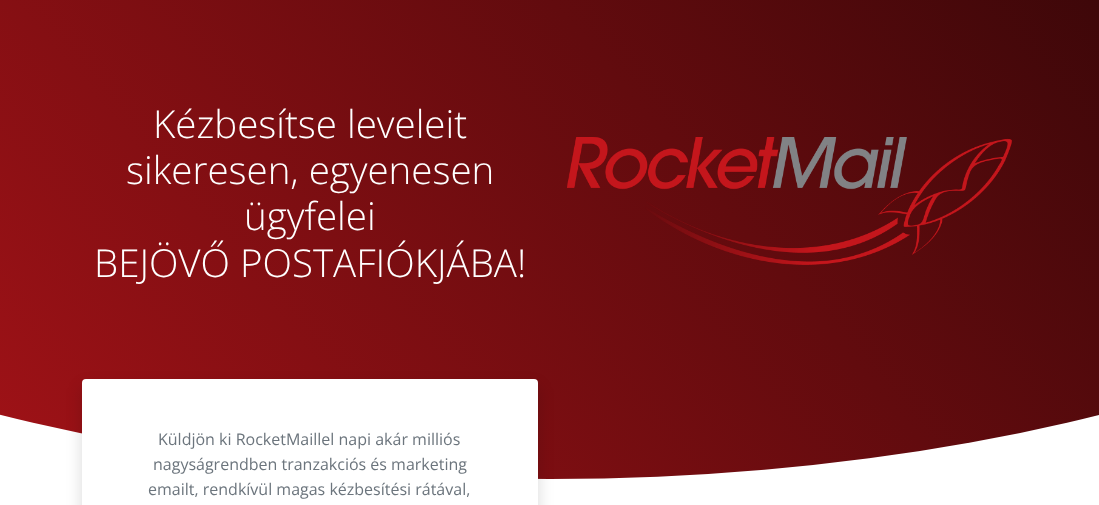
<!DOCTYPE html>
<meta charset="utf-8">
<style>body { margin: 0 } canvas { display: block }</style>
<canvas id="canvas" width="1099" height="505"></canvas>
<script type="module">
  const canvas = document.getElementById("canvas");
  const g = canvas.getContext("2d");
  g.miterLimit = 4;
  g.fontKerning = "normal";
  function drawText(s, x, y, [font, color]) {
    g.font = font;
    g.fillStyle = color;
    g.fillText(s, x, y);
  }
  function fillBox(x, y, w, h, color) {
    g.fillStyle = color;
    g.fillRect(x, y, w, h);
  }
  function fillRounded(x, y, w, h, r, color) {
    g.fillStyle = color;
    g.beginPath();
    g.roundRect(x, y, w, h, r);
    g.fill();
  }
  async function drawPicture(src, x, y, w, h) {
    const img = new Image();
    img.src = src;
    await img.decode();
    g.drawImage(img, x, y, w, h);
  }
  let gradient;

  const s1 = ["300 38.5px Open Sans", "#FFFFFF"];
  const s2 = ["16px Open Sans", "#6C757D"];

  fillBox(0, 0, 1099, 505, "#FFFFFF");
  gradient = g.createLinearGradient(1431, -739, -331, 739);
  gradient.addColorStop(0, "#000000");
  gradient.addColorStop(1, "#C4161C");
  g.fillStyle = gradient;
  g.beginPath();
  g.ellipse(550, 0, 1099, 479, 0, 0, Math.PI * 2);
  g.fill();
  drawText("Kézbesítse leveleit", 153, 138, s1);
  drawText("sikeresen, egyenesen", 126, 184, s1);
  drawText("ügyfelei", 244, 230, s1);
  drawText("BEJÖVŐ POSTAFIÓKJÁBA!", 94, 277, s1);
  await drawPicture("pic1.png", 567, 137, 445, 128);
  g.fillStyle = "rgba(0, 0, 0, 0.15)";
  g.filter = "blur(8px)";
  g.beginPath();
  g.roundRect(82, 387, 456, 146, 4);
  g.fill();
  g.filter = "none";
  fillRounded(82, 379, 456, 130, 4, "#FFFFFF");
  drawText("Küldjön ki RocketMaillel napi akár milliós", 158, 445, s2);
  drawText("nagyságrendben tranzakciós és marketing", 153, 470, s2);
  drawText("emailt, rendkívül magas kézbesítési rátával,", 148, 495, s2);
</script>
